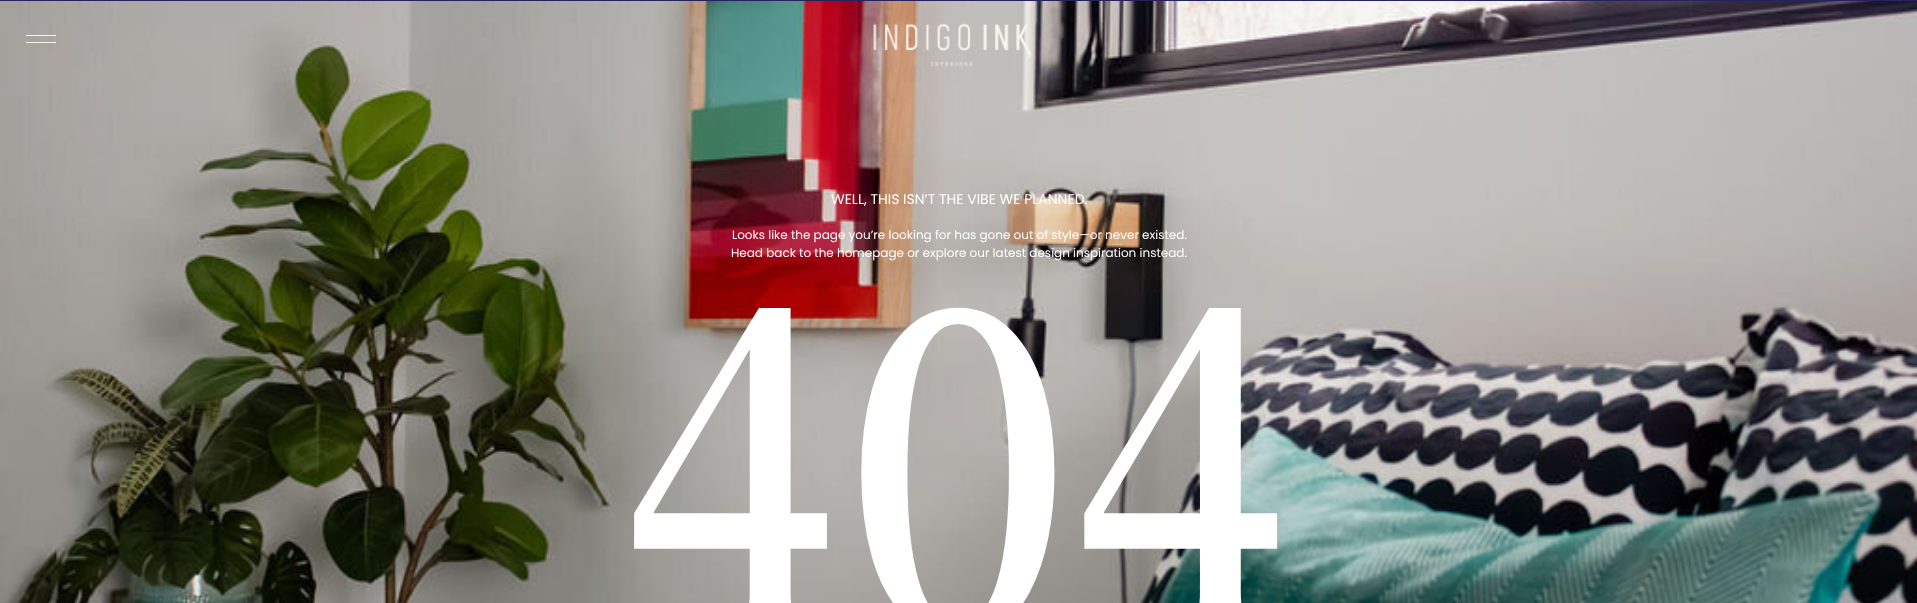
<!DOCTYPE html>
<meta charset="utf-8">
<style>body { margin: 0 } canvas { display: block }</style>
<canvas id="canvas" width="1917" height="603"></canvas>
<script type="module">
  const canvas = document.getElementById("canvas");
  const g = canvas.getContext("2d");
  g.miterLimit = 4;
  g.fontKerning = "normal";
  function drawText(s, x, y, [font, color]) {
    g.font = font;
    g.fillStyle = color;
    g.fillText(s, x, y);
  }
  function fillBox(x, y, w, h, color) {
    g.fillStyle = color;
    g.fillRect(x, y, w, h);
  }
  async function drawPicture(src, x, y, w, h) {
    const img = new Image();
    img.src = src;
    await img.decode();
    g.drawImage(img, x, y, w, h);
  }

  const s1 = ["14px Poppins", "#FFFFFF"];
  const s2 = ["12px Poppins", "#FFFFFF"];
  const s3 = ["400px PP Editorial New", "#FFFFFF"];

  fillBox(0, 0, 1917, 603, "#FFFFFF");
  fillBox(0, 0, 1917, 1, "#26225B");
  await drawPicture("pic2.png", 0, 1, 1917, 602);
  fillBox(26, 35, 30, 1, "#F9F4EB");
  fillBox(26, 42, 30, 1, "#F9F4EB");
  await drawPicture("pic1.png", 873, 23, 159, 44);
  drawText("WELL, THIS ISN’T THE VIBE WE PLANNED.", 831, 204, s1);
  drawText("Looks like the page you’re looking for has gone out of style—or never existed.", 732, 239, s2);
  drawText("Head back to the homepage or explore our latest design inspiration instead.", 731, 257, s2);
  drawText("404", 623, 634, s3);
</script>
